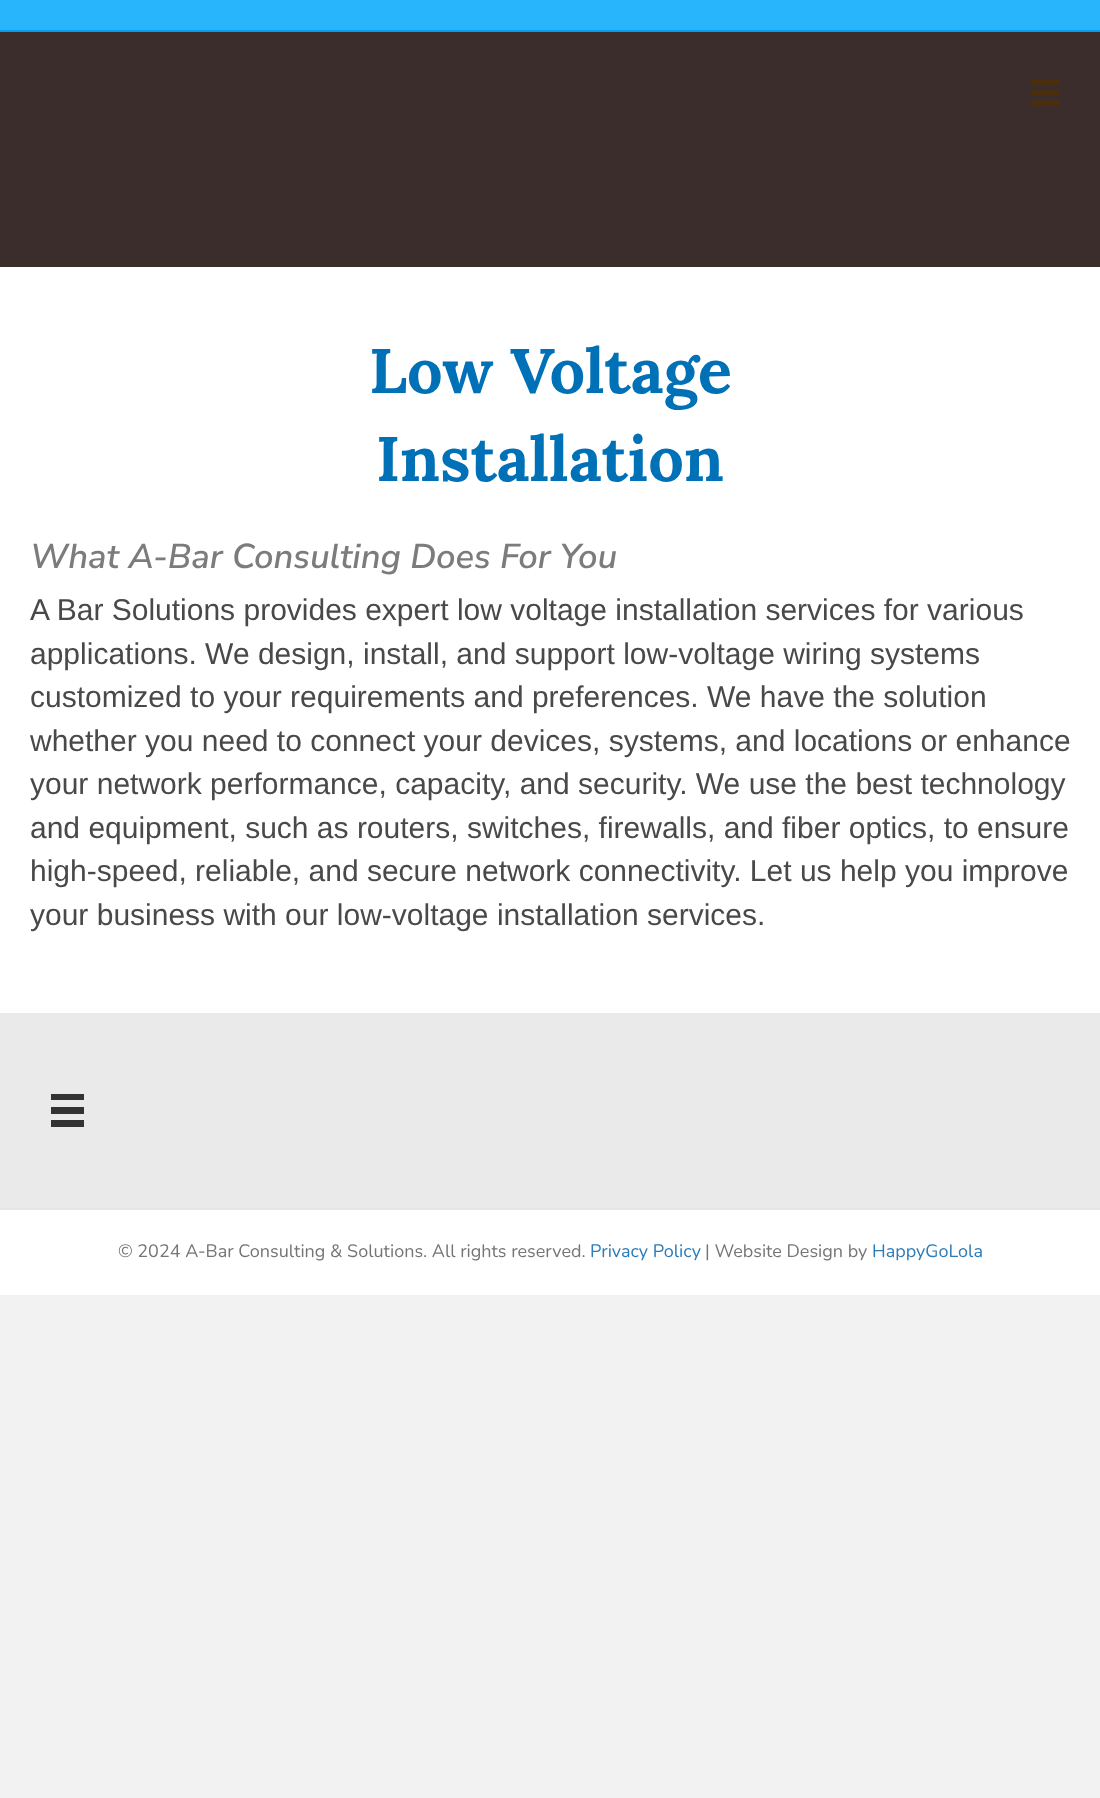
<!DOCTYPE html>
<meta charset="utf-8">
<style>body { margin: 0 } canvas { display: block }</style>
<canvas id="canvas" width="1100" height="1798"></canvas>
<script type="module">
  const canvas = document.getElementById("canvas");
  const g = canvas.getContext("2d");
  g.miterLimit = 4;
  g.fontKerning = "normal";
  function drawText(s, x, y, [font, color]) {
    g.font = font;
    g.fillStyle = color;
    g.fillText(s, x, y);
  }
  function fillBox(x, y, w, h, color) {
    g.fillStyle = color;
    g.fillRect(x, y, w, h);
  }
  async function drawPicture(src, x, y, w, h) {
    const img = new Image();
    img.src = src;
    await img.decode();
    g.drawImage(img, x, y, w, h);
  }

  const s1 = ["bold 63px Lora", "#0071B7"];
  const s2 = ["italic 200 34.5px Nunito Sans", "#7C7C7C"];
  const s3 = ["30px Liberation Sans", "#494949"];
  const s4 = ["18px Nunito", "#757575"];
  const s5 = ["18px Nunito", "#2B7BB9"];

  fillBox(0, 0, 1100, 1798, "#F2F2F2");
  fillBox(0, 0, 1100, 30, "#28B5FC");
  fillBox(0, 30, 1100, 2, "#039FEE");
  fillBox(0, 32, 1100, 235, "#3A2D2C");
  await drawPicture("pic1.png", 1030, 80, 30, 26);
  fillBox(0, 267, 1100, 746, "#FFFFFF");
  drawText("Low Voltage", 369, 393, s1);
  drawText("Installation", 376, 481, s1);
  drawText("What A-Bar Consulting Does For You", 30, 568, s2);
  drawText("A Bar Solutions provides expert low voltage installation services for various", 30, 620, s3);
  drawText("applications. We design, install, and support low-voltage wiring systems", 30, 664, s3);
  drawText("customized to your requirements and preferences. We have the solution", 30, 707, s3);
  drawText("whether you need to connect your devices, systems, and locations or enhance", 30, 751, s3);
  drawText("your network performance, capacity, and security. We use the best technology", 30, 794, s3);
  drawText("and equipment, such as routers, switches, firewalls, and fiber optics, to ensure", 30, 838, s3);
  drawText("high-speed, reliable, and secure network connectivity. Let us help you improve", 30, 881, s3);
  drawText("your business with our low-voltage installation services.", 30, 925, s3);
  fillBox(0, 1013, 1100, 195, "#EAEAEA");
  fillBox(51, 1094, 33, 6, "#333333");
  fillBox(51, 1107, 33, 7, "#333333");
  fillBox(51, 1120, 33, 7, "#333333");
  fillBox(0, 1210, 1100, 85, "#FFFFFF");
  fillBox(0, 1208, 1100, 2, "#E6E6E6");
  drawText("© 2024 A-Bar Consulting & Solutions. All rights reserved.", 118, 1257, s4);
  drawText("Privacy Policy", 590, 1257, s5);
  drawText("| Website Design by", 705, 1257, s4);
  drawText("HappyGoLola", 872, 1257, s5);
</script>
